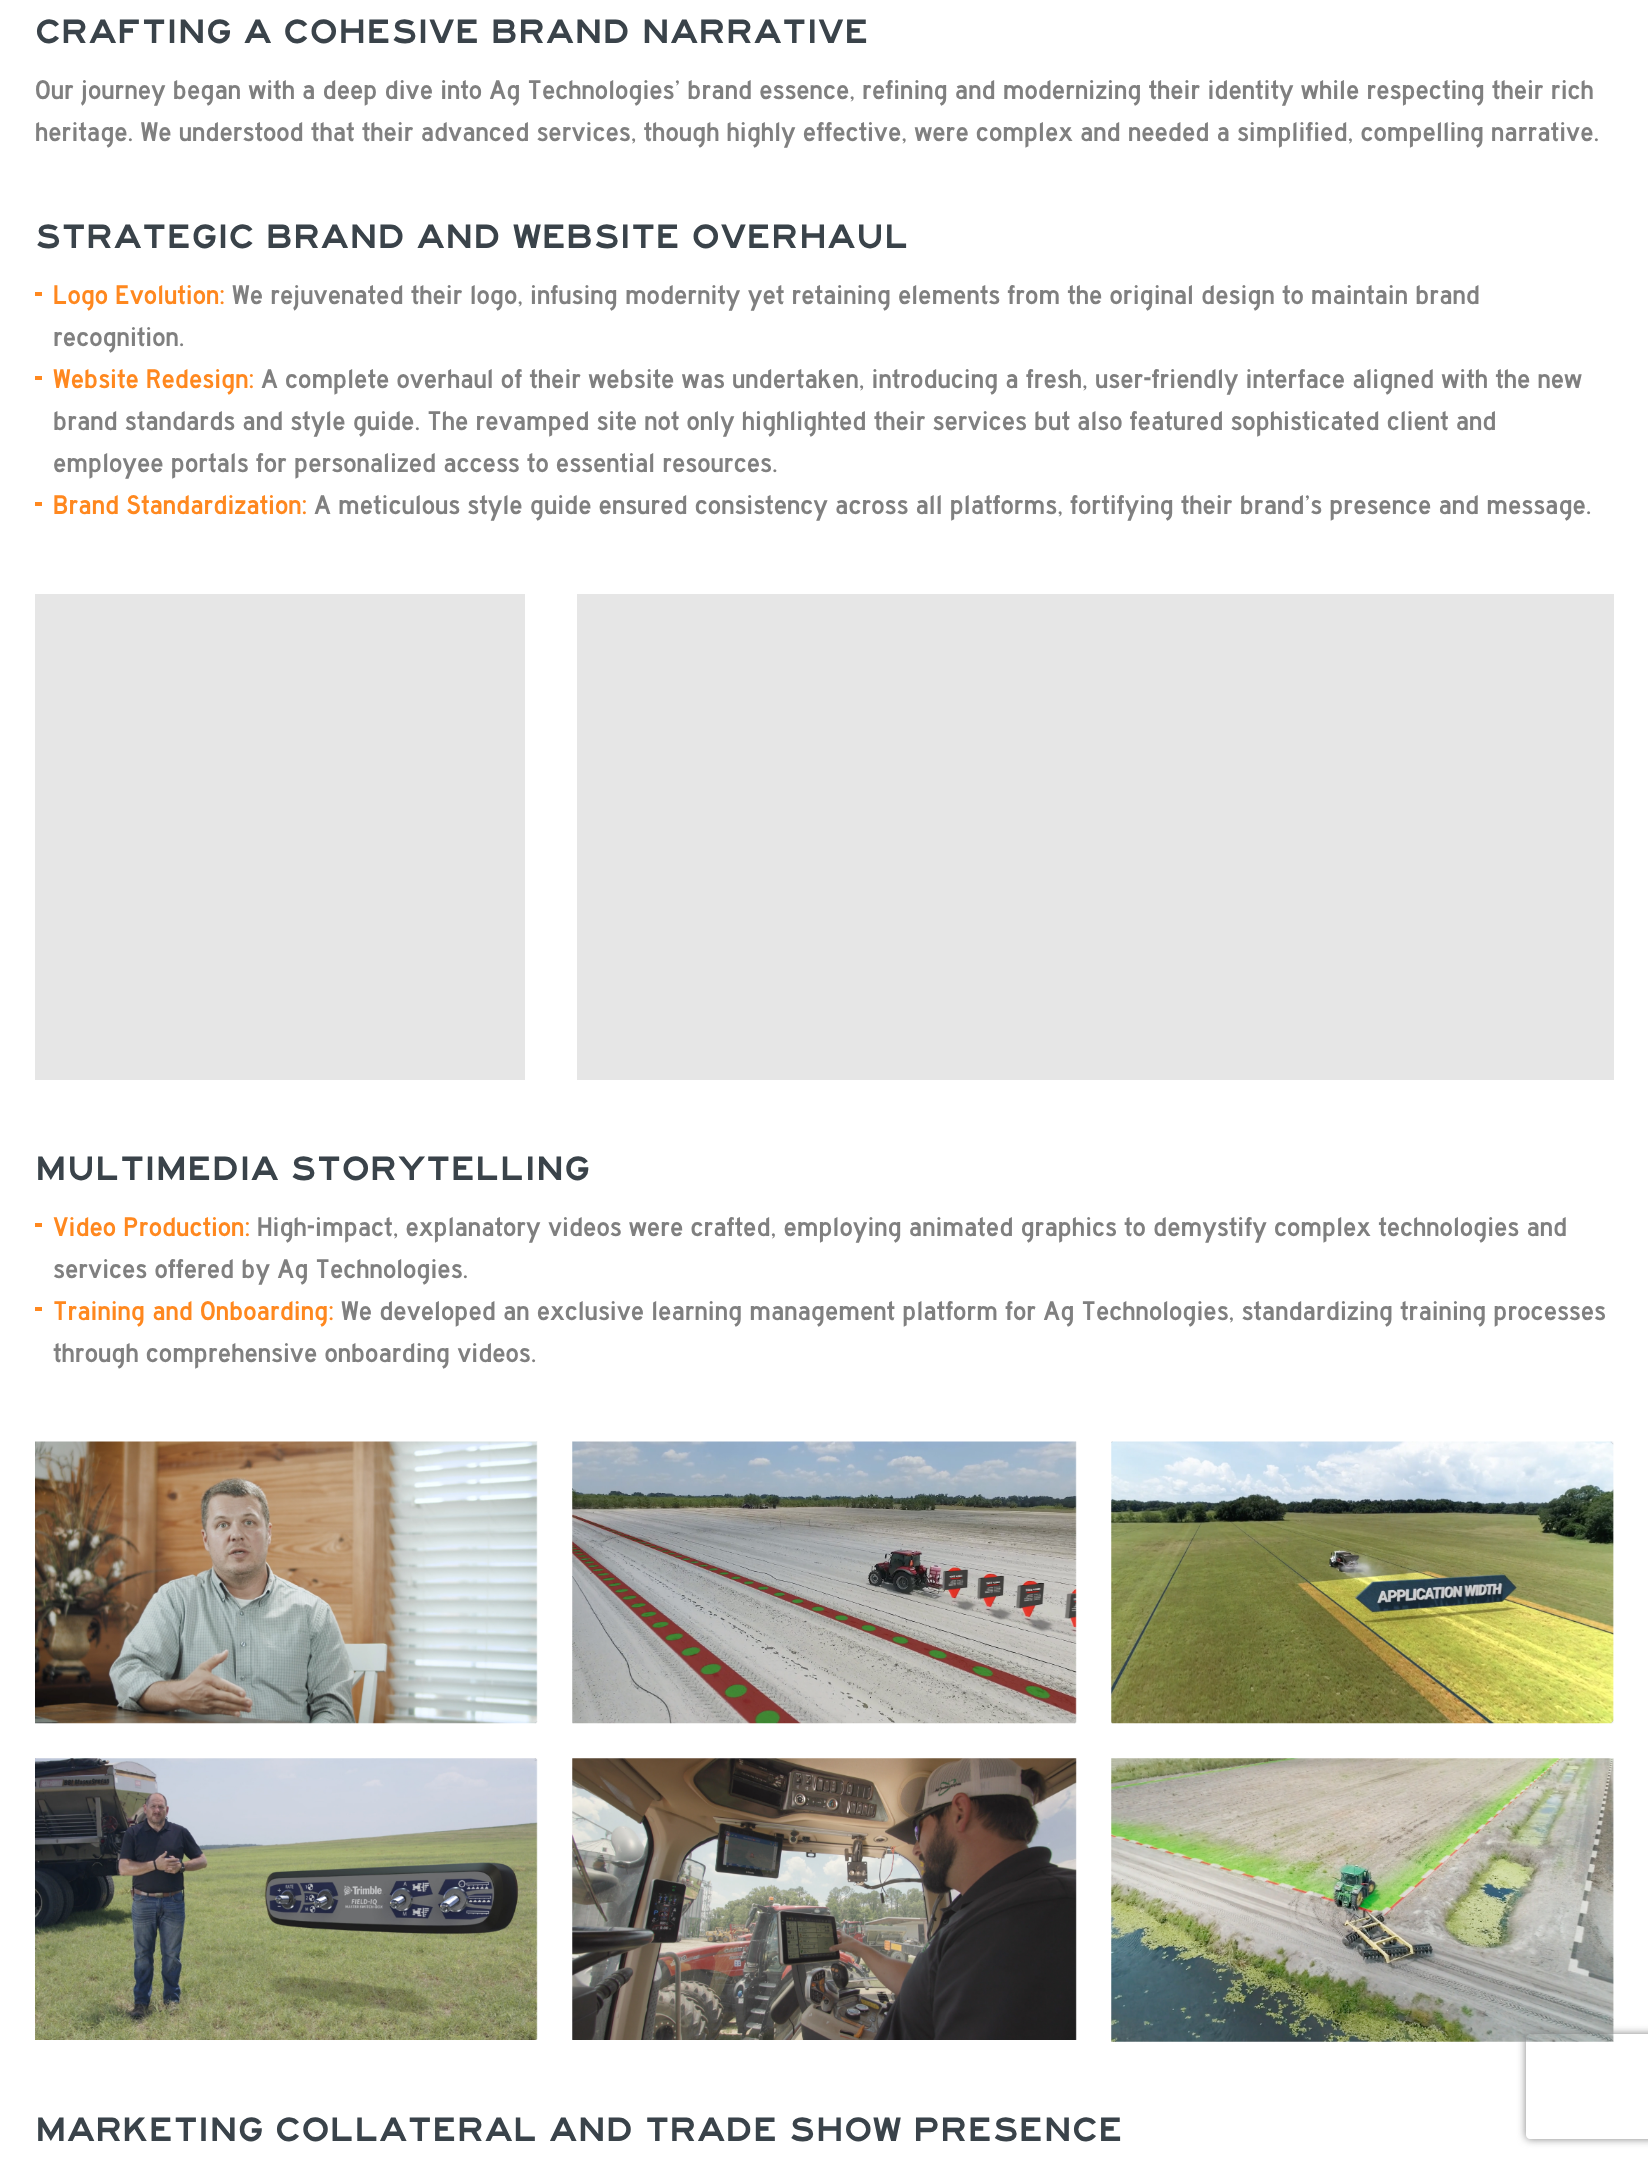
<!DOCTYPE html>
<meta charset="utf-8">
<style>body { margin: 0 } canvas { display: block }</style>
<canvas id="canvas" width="1648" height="2163"></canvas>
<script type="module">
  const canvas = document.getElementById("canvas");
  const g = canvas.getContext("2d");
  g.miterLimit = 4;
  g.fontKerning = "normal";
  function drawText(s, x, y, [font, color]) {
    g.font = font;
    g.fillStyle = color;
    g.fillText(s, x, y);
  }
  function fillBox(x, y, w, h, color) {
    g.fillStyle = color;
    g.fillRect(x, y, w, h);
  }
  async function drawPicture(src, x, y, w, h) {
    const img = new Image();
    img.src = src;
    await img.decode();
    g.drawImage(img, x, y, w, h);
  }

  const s1 = ["35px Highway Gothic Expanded", "#3A434A"];
  const s2 = ["28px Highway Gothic", "#808080"];
  const s3 = ["28px Highway Gothic", "#FF881F"];

  fillBox(0, 0, 1648, 2163, "#FFFFFF");
  drawText("CRAFTING A COHESIVE BRAND NARRATIVE", 35, 43, s1);
  drawText("Our journey began with a deep dive into Ag Technologies’ brand essence, refining and modernizing their identity while respecting their rich", 35, 99, s2);
  drawText("heritage. We understood that their advanced services, though highly effective, were complex and needed a simplified, compelling narrative.", 35, 141, s2);
  drawText("STRATEGIC BRAND AND WEBSITE OVERHAUL", 35, 248, s1);
  fillBox(35, 292, 7, 4, "#FF881F");
  drawText("Logo Evolution:", 53, 304, s3);
  drawText("We rejuvenated their logo, infusing modernity yet retaining elements from the original design to maintain brand", 232, 304, s2);
  drawText("recognition.", 53, 346, s2);
  fillBox(35, 376, 7, 4, "#FF881F");
  drawText("Website Redesign:", 53, 388, s3);
  drawText("A complete overhaul of their website was undertaken, introducing a fresh, user-friendly interface aligned with the new", 261, 388, s2);
  drawText("brand standards and style guide. The revamped site not only highlighted their services but also featured sophisticated client and", 53, 430, s2);
  drawText("employee portals for personalized access to essential resources.", 53, 472, s2);
  fillBox(35, 502, 7, 4, "#FF881F");
  drawText("Brand Standardization:", 53, 514, s3);
  drawText("A meticulous style guide ensured consistency across all platforms, fortifying their brand’s presence and message.", 314, 514, s2);
  fillBox(35, 594, 490, 486, "#E6E6E6");
  fillBox(577, 594, 1037, 486, "#E6E6E6");
  drawText("MULTIMEDIA STORYTELLING", 35, 1180, s1);
  fillBox(35, 1223, 7, 4, "#FF881F");
  drawText("Video Production:", 53, 1236, s3);
  drawText("High-impact, explanatory videos were crafted, employing animated graphics to demystify complex technologies and", 257, 1236, s2);
  drawText("services offered by Ag Technologies.", 53, 1278, s2);
  fillBox(35, 1307, 7, 4, "#FF881F");
  drawText("Training and Onboarding:", 53, 1320, s3);
  drawText("We developed an exclusive learning management platform for Ag Technologies, standardizing training processes", 341, 1320, s2);
  drawText("through comprehensive onboarding videos.", 53, 1362, s2);
  await drawPicture("pic1.png", 35, 1441, 503, 283);
  await drawPicture("pic2.png", 572, 1441, 505, 283);
  await drawPicture("pic3.png", 1111, 1441, 503, 283);
  await drawPicture("pic4.png", 35, 1758, 503, 282);
  await drawPicture("pic5.png", 572, 1758, 505, 282);
  await drawPicture("pic6.png", 1111, 1758, 503, 284);
  drawText("MARKETING COLLATERAL AND TRADE SHOW PRESENCE", 35, 2141, s1);
  g.save();
  g.beginPath();
  g.moveTo(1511, 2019);
  g.lineTo(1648, 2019);
  g.lineTo(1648, 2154);
  g.lineTo(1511, 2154);
  g.closePath();
  g.moveTo(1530, 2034);
  g.lineTo(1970, 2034);
  g.bezierCurveTo(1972, 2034, 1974, 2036, 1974, 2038);
  g.lineTo(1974, 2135);
  g.bezierCurveTo(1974, 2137, 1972, 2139, 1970, 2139);
  g.lineTo(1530, 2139);
  g.bezierCurveTo(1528, 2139, 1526, 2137, 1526, 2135);
  g.lineTo(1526, 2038);
  g.bezierCurveTo(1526, 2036, 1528, 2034, 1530, 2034);
  g.closePath();
  g.clip("evenodd");
  g.fillStyle = "#808080";
  g.filter = "blur(4.5px)";
  g.beginPath();
  g.roundRect(1526, 2034, 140, 105, 4);
  g.fill();
  g.filter = "none";
  g.restore();
</script>
